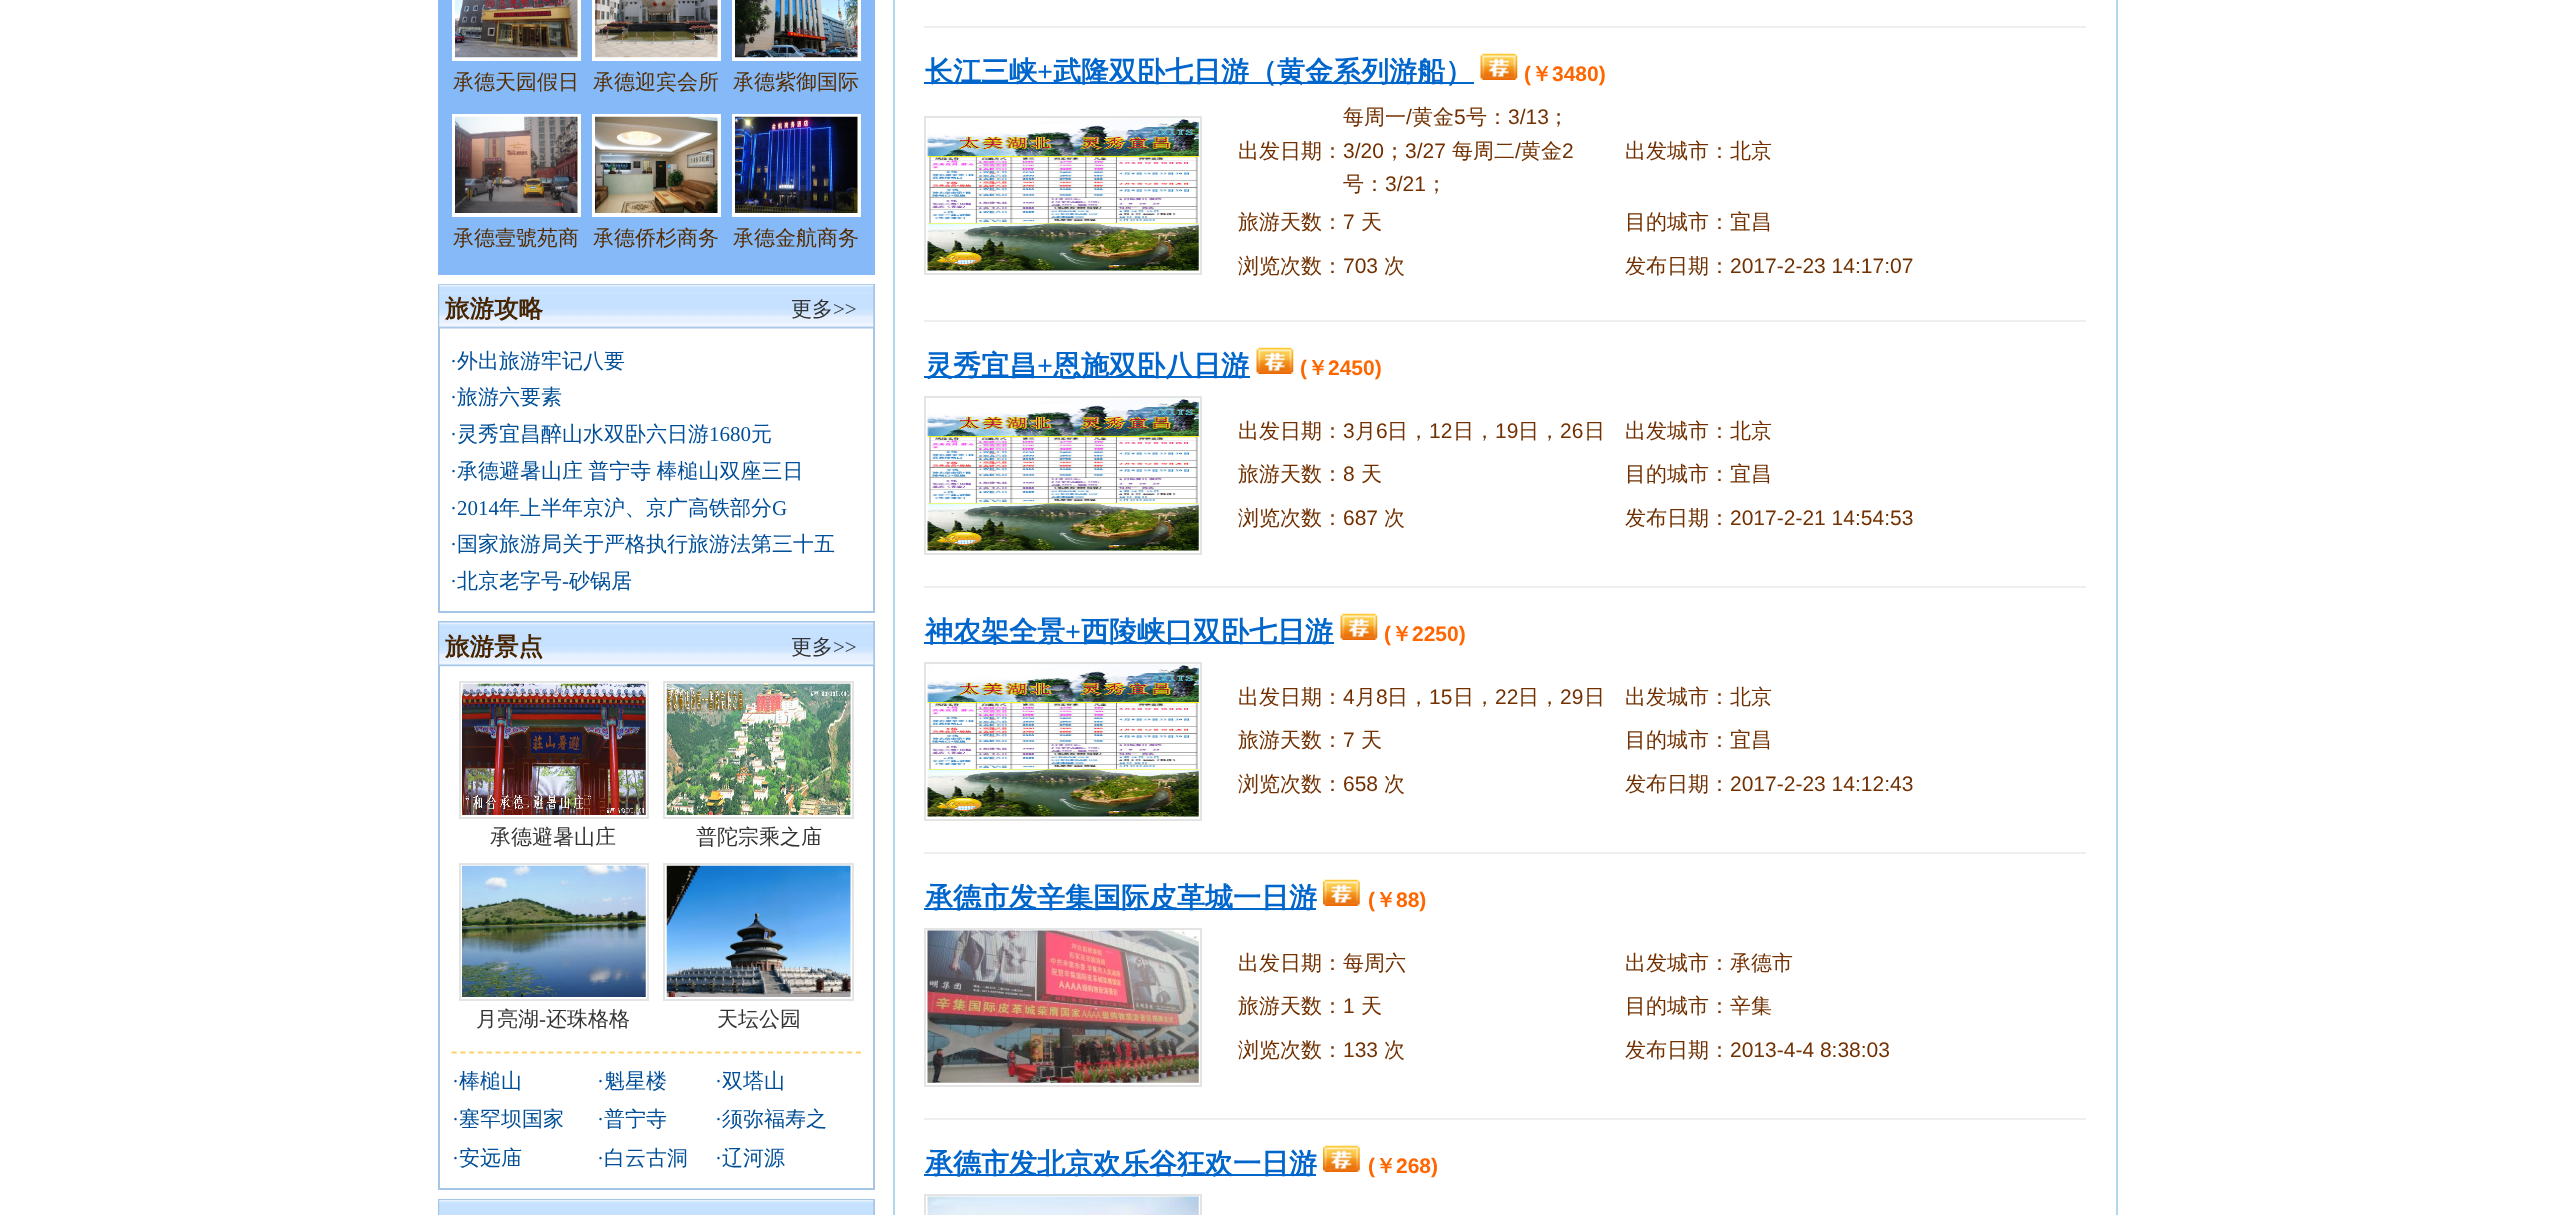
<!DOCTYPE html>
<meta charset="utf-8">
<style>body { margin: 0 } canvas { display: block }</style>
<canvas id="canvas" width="2554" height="1215"></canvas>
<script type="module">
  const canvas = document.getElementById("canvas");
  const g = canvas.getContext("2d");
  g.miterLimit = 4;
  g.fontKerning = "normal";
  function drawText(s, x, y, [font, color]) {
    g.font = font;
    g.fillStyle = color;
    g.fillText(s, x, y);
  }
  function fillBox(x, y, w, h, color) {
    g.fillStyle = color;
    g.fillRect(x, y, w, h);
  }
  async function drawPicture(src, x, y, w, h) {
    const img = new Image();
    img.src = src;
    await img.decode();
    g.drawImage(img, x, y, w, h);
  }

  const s1 = ["500 21px WenQuanYi Zen Hei", "#552D00"];
  const s2 = ["bold 24.5px WenQuanYi Zen Hei", "#472500"];
  const s3 = ["500 21px WenQuanYi Zen Hei", "#333333"];
  const s4 = ["21px Liberation Serif", "#333333"];
  const s5 = ["21px Liberation Serif", "#004F98"];
  const s6 = ["500 21px WenQuanYi Zen Hei", "#004F98"];
  const s7 = ["bold 28px WenQuanYi Zen Hei", "#0066CC"];
  const s8 = ["bold 28px Liberation Serif", "#0066CC"];
  const s9 = ["bold 21px Liberation Sans", "#FF6600"];
  const s10 = ["bold 21px WenQuanYi Zen Hei", "#FF6600"];
  const s11 = ["500 21px WenQuanYi Zen Hei", "#723000"];
  const s12 = ["21px Liberation Sans", "#723000"];

  fillBox(0, 0, 2554, 1215, "#FFFFFF");
  fillBox(438, 0, 437, 275, "#86B9F8");
  fillBox(452, 0, 129, 61, "#FFFFFF");
  await drawPicture("pic1.png", 455, 0, 123, 58);
  drawText("承德天园假日", 453, 89, s1);
  fillBox(592, 0, 129, 61, "#FFFFFF");
  await drawPicture("pic2.png", 595, 0, 123, 58);
  drawText("承德迎宾会所", 593, 89, s1);
  fillBox(732, 0, 129, 61, "#FFFFFF");
  await drawPicture("pic3.png", 735, 0, 123, 58);
  drawText("承德紫御国际", 733, 89, s1);
  fillBox(452, 114, 129, 103, "#FFFFFF");
  await drawPicture("pic4.png", 455, 116, 123, 97);
  drawText("承德壹號苑商", 453, 245, s1);
  fillBox(592, 114, 129, 103, "#FFFFFF");
  await drawPicture("pic5.png", 595, 116, 123, 97);
  drawText("承德侨杉商务", 593, 245, s1);
  fillBox(732, 114, 129, 103, "#FFFFFF");
  await drawPicture("pic6.png", 735, 116, 123, 97);
  drawText("承德金航商务", 733, 245, s1);
  g.strokeStyle = "#A5C6E7";
  g.lineWidth = 2;
  g.strokeRect(439, 285, 435, 327);
  await drawPicture("pic7.png", 439, 284, 435, 45);
  drawText("旅游攻略", 445, 317, s2);
  drawText("更多", 791, 316, s3);
  drawText(">>", 833, 316, s4);
  drawText("·", 450, 368, s5);
  drawText("外出旅游牢记八要", 457, 368, s6);
  drawText("·", 450, 404, s5);
  drawText("旅游六要素", 457, 404, s6);
  drawText("·", 450, 441, s5);
  drawText("灵秀宜昌醉山水双卧六日游", 457, 441, s6);
  drawText("1680", 709, 441, s5);
  drawText("元", 751, 441, s6);
  drawText("·", 450, 478, s5);
  g.wordSpacing = "-1px";
  drawText("承德避暑山庄 普宁寺 棒槌山双座三日", 457, 478, s6);
  g.wordSpacing = "0px";
  drawText("·2014", 450, 515, s5);
  drawText("年上半年京沪、京广高铁部分", 499, 515, s6);
  drawText("G", 772, 515, s5);
  drawText("·", 450, 551, s5);
  drawText("国家旅游局关于严格执行旅游法第三十五", 457, 551, s6);
  drawText("·", 450, 588, s5);
  drawText("北京老字号", 457, 588, s6);
  drawText("-", 562, 588, s5);
  drawText("砂锅居", 569, 588, s6);
  g.strokeRect(439, 622, 435, 567);
  await drawPicture("pic8.png", 439, 622, 435, 45);
  drawText("旅游景点", 445, 655, s2);
  drawText("更多", 791, 654, s3);
  drawText(">>", 833, 654, s4);
  g.strokeStyle = "#E4E4E4";
  g.strokeRect(460, 682, 188, 136);
  await drawPicture("pic9.png", 462, 683, 184, 132);
  drawText("承德避暑山庄", 490, 844, s3);
  g.strokeRect(664, 682, 189, 136);
  await drawPicture("pic10.png", 666, 683, 185, 132);
  drawText("普陀宗乘之庙", 696, 844, s3);
  g.strokeRect(460, 864, 188, 136);
  await drawPicture("pic11.png", 462, 865, 184, 132);
  drawText("月亮湖", 476, 1026, s3);
  drawText("-", 539, 1026, s4);
  drawText("还珠格格", 546, 1026, s3);
  g.strokeRect(664, 864, 189, 136);
  await drawPicture("pic12.png", 666, 865, 185, 132);
  drawText("天坛公园", 717, 1026, s3);
  g.beginPath();
  g.moveTo(451.5, 1052.5);
  g.lineTo(861, 1052.5);
  g.strokeStyle = "#FFD16D";
  g.lineWidth = 1.8;
  g.setLineDash([5.25, 3.54]);
  g.stroke();
  drawText("·", 452, 1088, s5);
  drawText("棒槌山", 459, 1088, s6);
  drawText("·", 597, 1088, s5);
  drawText("魁星楼", 604, 1088, s6);
  drawText("·", 715, 1088, s5);
  drawText("双塔山", 722, 1088, s6);
  drawText("·", 452, 1126, s5);
  drawText("塞罕坝国家", 459, 1126, s6);
  drawText("·", 597, 1126, s5);
  drawText("普宁寺", 604, 1126, s6);
  drawText("·", 715, 1126, s5);
  drawText("须弥福寿之", 722, 1126, s6);
  drawText("·", 452, 1165, s5);
  drawText("安远庙", 459, 1165, s6);
  drawText("·", 597, 1165, s5);
  drawText("白云古洞", 604, 1165, s6);
  drawText("·", 715, 1165, s5);
  drawText("辽河源", 722, 1165, s6);
  g.strokeStyle = "#A5C6E7";
  g.lineWidth = 2;
  g.setLineDash([]);
  g.strokeRect(439, 1200, 435, 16);
  await drawPicture("pic13.png", 439, 1200, 435, 15);
  g.strokeStyle = "#B1D7EE";
  g.strokeRect(894, -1, 1223, 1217);
  fillBox(924, 26, 1162, 2, "#EEEEEE");
  fillBox(924, 82, 550, 2, "#0066CC");
  drawText("长江三峡", 925, 81, s7);
  drawText("+", 1037, 81, s8);
  drawText("武隆双卧七日游（黄金系列游船）", 1053, 81, s7);
  await drawPicture("pic14.png", 1480, 53, 38, 27);
  drawText("(", 1524, 81, s9);
  drawText("￥", 1531, 81, s10);
  drawText("3480)", 1552, 81, s9);
  g.strokeStyle = "#E4E4E4";
  g.strokeRect(925, 117, 276, 157);
  await drawPicture("pic15.png", 927, 118, 272, 153);
  drawText("出发日期：", 1238, 158, s11);
  drawText("每周一", 1343, 124, s11);
  drawText("/", 1406, 124, s12);
  drawText("黄金", 1412, 124, s11);
  drawText("5", 1454, 124, s12);
  drawText("号：", 1466, 124, s11);
  drawText("3/13", 1508, 124, s12);
  drawText("；", 1548, 124, s11);
  drawText("3/20", 1343, 158, s12);
  drawText("；", 1384, 158, s11);
  drawText("3/27", 1405, 158, s12);
  drawText("每周二", 1452, 158, s11);
  drawText("/", 1515, 158, s12);
  drawText("黄金", 1520, 158, s11);
  drawText("2", 1562, 158, s12);
  drawText("号：", 1343, 191, s11);
  drawText("3/21", 1385, 191, s12);
  drawText("；", 1426, 191, s11);
  drawText("出发城市：北京", 1625, 158, s11);
  drawText("旅游天数：", 1238, 229, s11);
  drawText("7", 1343, 229, s12);
  drawText("天", 1361, 229, s11);
  drawText("目的城市：宜昌", 1625, 229, s11);
  drawText("浏览次数：", 1238, 273, s11);
  drawText("703", 1343, 273, s12);
  drawText("次", 1384, 273, s11);
  drawText("发布日期：", 1625, 273, s11);
  drawText("2017-2-23 14:17:07", 1730, 273, s12);
  fillBox(924, 320, 1162, 2, "#EEEEEE");
  fillBox(924, 376, 326, 2, "#0066CC");
  drawText("灵秀宜昌", 925, 375, s7);
  drawText("+", 1037, 375, s8);
  drawText("恩施双卧八日游", 1053, 375, s7);
  await drawPicture("pic16.png", 1256, 347, 38, 27);
  drawText("(", 1300, 375, s9);
  drawText("￥", 1307, 375, s10);
  drawText("2450)", 1328, 375, s9);
  g.strokeRect(925, 397, 276, 157);
  await drawPicture("pic15.png", 927, 398, 272, 153);
  drawText("出发日期：", 1238, 438, s11);
  drawText("3", 1343, 438, s12);
  drawText("月", 1355, 438, s11);
  drawText("6", 1376, 438, s12);
  drawText("日，", 1387, 438, s11);
  drawText("12", 1429, 438, s12);
  drawText("日，", 1453, 438, s11);
  drawText("19", 1495, 438, s12);
  drawText("日，", 1518, 438, s11);
  drawText("26", 1560, 438, s12);
  drawText("日", 1584, 438, s11);
  drawText("出发城市：北京", 1625, 438, s11);
  drawText("旅游天数：", 1238, 481, s11);
  drawText("8", 1343, 481, s12);
  drawText("天", 1361, 481, s11);
  drawText("目的城市：宜昌", 1625, 481, s11);
  drawText("浏览次数：", 1238, 525, s11);
  drawText("687", 1343, 525, s12);
  drawText("次", 1384, 525, s11);
  drawText("发布日期：", 1625, 525, s11);
  drawText("2017-2-21 14:54:53", 1730, 525, s12);
  fillBox(924, 586, 1162, 2, "#EEEEEE");
  fillBox(924, 642, 410, 2, "#0066CC");
  drawText("神农架全景", 925, 641, s7);
  drawText("+", 1065, 641, s8);
  drawText("西陵峡口双卧七日游", 1081, 641, s7);
  await drawPicture("pic14.png", 1340, 613, 38, 27);
  drawText("(", 1384, 641, s9);
  drawText("￥", 1391, 641, s10);
  drawText("2250)", 1412, 641, s9);
  g.strokeRect(925, 663, 276, 157);
  await drawPicture("pic15.png", 927, 664, 272, 153);
  drawText("出发日期：", 1238, 704, s11);
  drawText("4", 1343, 704, s12);
  drawText("月", 1355, 704, s11);
  drawText("8", 1376, 704, s12);
  drawText("日，", 1387, 704, s11);
  drawText("15", 1429, 704, s12);
  drawText("日，", 1453, 704, s11);
  drawText("22", 1495, 704, s12);
  drawText("日，", 1518, 704, s11);
  drawText("29", 1560, 704, s12);
  drawText("日", 1584, 704, s11);
  drawText("出发城市：北京", 1625, 704, s11);
  drawText("旅游天数：", 1238, 747, s11);
  drawText("7", 1343, 747, s12);
  drawText("天", 1361, 747, s11);
  drawText("目的城市：宜昌", 1625, 747, s11);
  drawText("浏览次数：", 1238, 791, s11);
  drawText("658", 1343, 791, s12);
  drawText("次", 1384, 791, s11);
  drawText("发布日期：", 1625, 791, s11);
  drawText("2017-2-23 14:12:43", 1730, 791, s12);
  fillBox(924, 852, 1162, 2, "#EEEEEE");
  fillBox(924, 908, 392, 2, "#0066CC");
  drawText("承德市发辛集国际皮革城一日游", 925, 907, s7);
  await drawPicture("pic17.png", 1323, 879, 37, 27);
  drawText("(", 1368, 907, s9);
  drawText("￥", 1375, 907, s10);
  drawText("88)", 1396, 907, s9);
  g.strokeRect(925, 929, 276, 157);
  await drawPicture("pic18.png", 927, 930, 272, 153);
  drawText("出发日期：每周六", 1238, 970, s11);
  drawText("出发城市：承德市", 1625, 970, s11);
  drawText("旅游天数：", 1238, 1013, s11);
  drawText("1", 1343, 1013, s12);
  drawText("天", 1361, 1013, s11);
  drawText("目的城市：辛集", 1625, 1013, s11);
  drawText("浏览次数：", 1238, 1057, s11);
  drawText("133", 1343, 1057, s12);
  drawText("次", 1384, 1057, s11);
  drawText("发布日期：", 1625, 1057, s11);
  drawText("2013-4-4 8:38:03", 1730, 1057, s12);
  fillBox(924, 1118, 1162, 2, "#EEEEEE");
  fillBox(924, 1174, 392, 2, "#0066CC");
  drawText("承德市发北京欢乐谷狂欢一日游", 925, 1173, s7);
  await drawPicture("pic17.png", 1323, 1145, 37, 27);
  drawText("(", 1368, 1173, s9);
  drawText("￥", 1375, 1173, s10);
  drawText("268)", 1396, 1173, s9);
  g.strokeRect(925, 1195, 276, 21);
  await drawPicture("pic19.png", 927, 1196, 272, 19);
</script>
